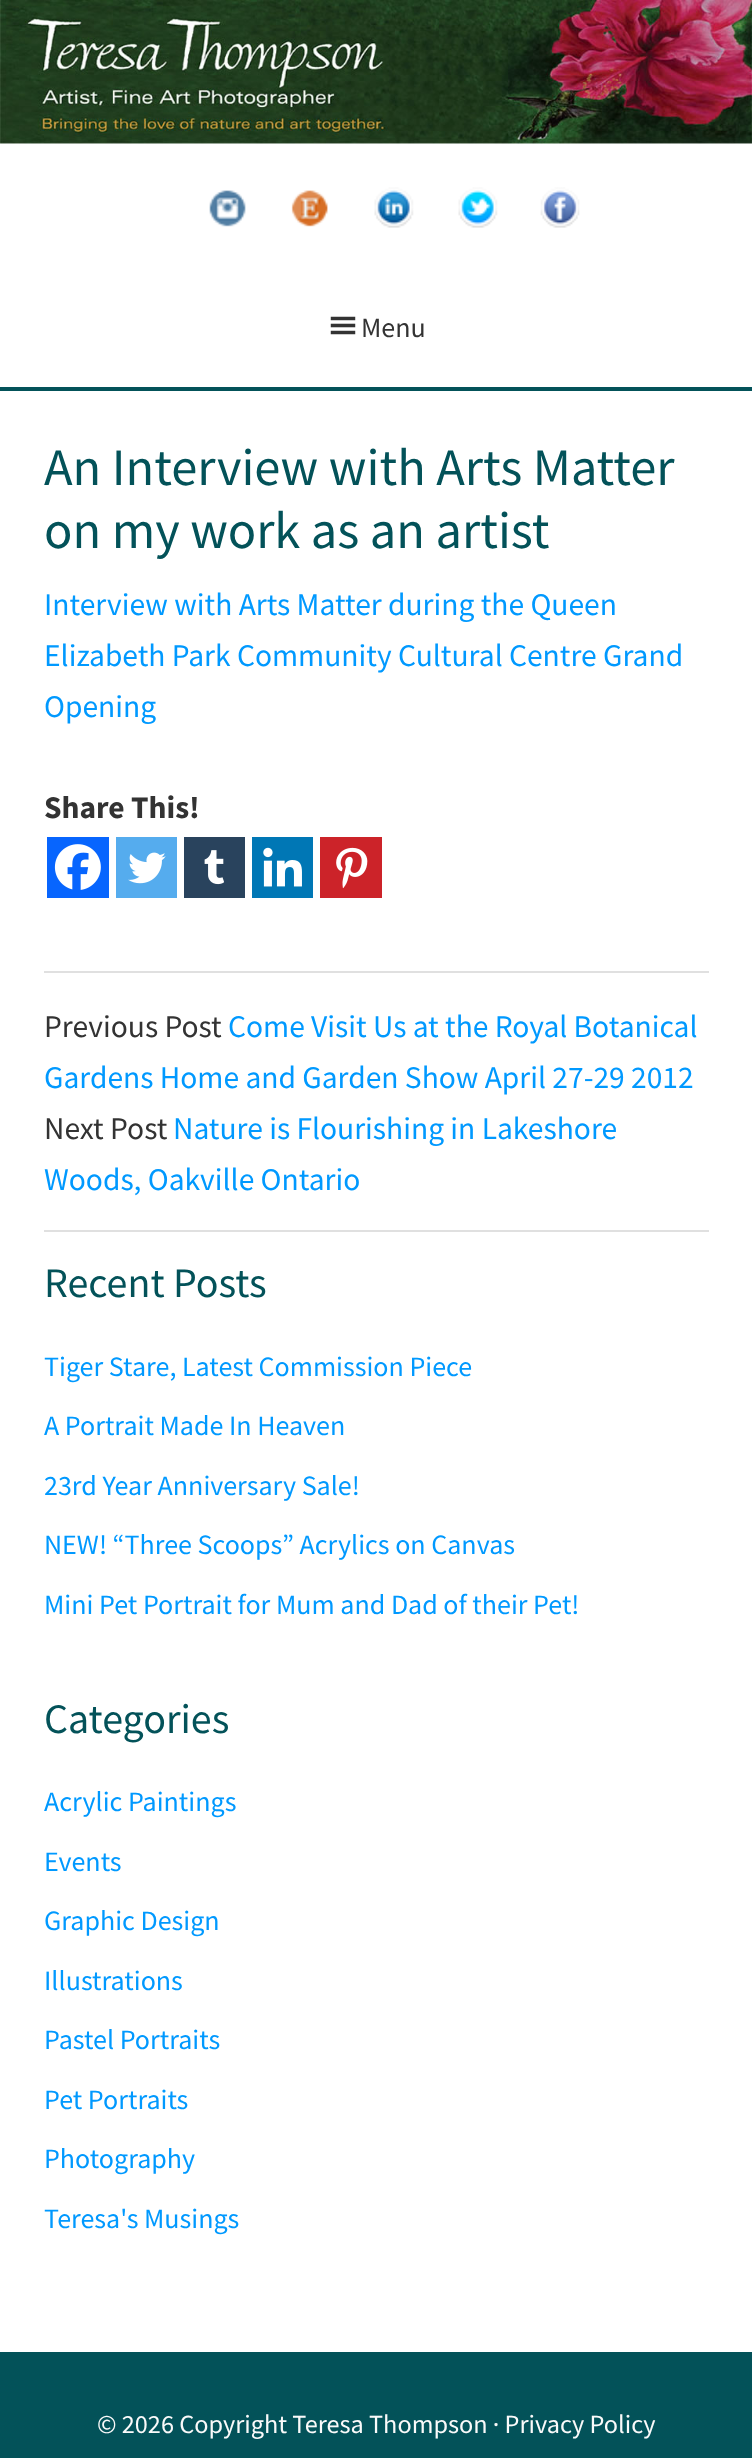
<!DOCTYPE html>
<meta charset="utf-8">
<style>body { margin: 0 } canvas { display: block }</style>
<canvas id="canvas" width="752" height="2458"></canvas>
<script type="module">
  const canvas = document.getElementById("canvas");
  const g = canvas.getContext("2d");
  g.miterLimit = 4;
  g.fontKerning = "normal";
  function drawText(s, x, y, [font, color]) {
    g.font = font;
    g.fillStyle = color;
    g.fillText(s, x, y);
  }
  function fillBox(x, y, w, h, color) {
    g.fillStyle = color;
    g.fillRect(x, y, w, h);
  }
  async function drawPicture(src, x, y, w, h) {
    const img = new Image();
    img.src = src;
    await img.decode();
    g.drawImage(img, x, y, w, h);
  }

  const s1 = ["28px Source Sans Pro", "#333333"];
  const s2 = ["52.5px Source Sans Pro", "#035259"];
  const s3 = ["31.5px Source Sans Pro", "#0099FF"];
  const s4 = ["bold 31.5px Source Sans Pro", "#333333"];
  const s5 = ["31.5px Source Sans Pro", "#333333"];
  const s6 = ["42px Source Sans Pro", "#035259"];
  const s7 = ["28px Source Sans Pro", "#0099FF"];
  const s8 = ["26.25px Source Sans Pro", "#FAFAFA"];

  fillBox(0, 0, 752, 2458, "#FFFFFF");
  await drawPicture("pic1.png", 0, 0, 752, 144);
  await drawPicture("pic2.png", 209, 190, 37, 37);
  await drawPicture("pic3.png", 291, 190, 37, 37);
  await drawPicture("pic4.png", 374, 187, 40, 41);
  await drawPicture("pic5.png", 458, 187, 40, 41);
  await drawPicture("pic6.png", 540, 187, 40, 41);
  await drawPicture("pic7.png", 330, 316, 26, 19);
  drawText("Menu", 361, 337, s1);
  fillBox(0, 387, 752, 4, "#035259");
  drawText("An Interview with Arts Matter", 44, 485, s2);
  drawText("on my work as an artist", 44, 548, s2);
  drawText("Interview with Arts Matter during the Queen", 44, 615, s3);
  drawText("Elizabeth Park Community Cultural Centre Grand", 44, 666, s3);
  drawText("Opening", 44, 717, s3);
  drawText("Share This!", 44, 818, s4);
  fillBox(47, 837, 62, 61, "#0765FE");
  await drawPicture("pic8.png", 54, 844, 47, 46);
  fillBox(116, 837, 61, 61, "#55ACEE");
  await drawPicture("pic9.png", 128, 852, 38, 32);
  fillBox(184, 837, 61, 61, "#29435D");
  await drawPicture("pic10.png", 204, 850, 20, 35);
  fillBox(252, 837, 61, 61, "#0077B5");
  await drawPicture("pic11.png", 263, 847, 39, 40);
  fillBox(320, 837, 62, 61, "#CC2329");
  await drawPicture("pic12.png", 336, 847, 32, 42);
  fillBox(44, 971, 665, 2, "#E0E0E0");
  fillBox(44, 1230, 665, 2, "#E0E0E0");
  drawText("Previous Post", 44, 1037, s5);
  drawText("Come Visit Us at the Royal Botanical", 228, 1037, s3);
  drawText("Gardens Home and Garden Show April 27-29 2012", 44, 1088, s3);
  drawText("Next Post", 44, 1139, s5);
  drawText("Nature is Flourishing in Lakeshore", 173, 1139, s3);
  drawText("Woods, Oakville Ontario", 44, 1190, s3);
  drawText("Recent Posts", 44, 1297, s6);
  drawText("Tiger Stare, Latest Commission Piece", 44, 1376, s7);
  drawText("A Portrait Made In Heaven", 44, 1435, s7);
  drawText("23rd Year Anniversary Sale!", 44, 1495, s7);
  drawText("NEW! “Three Scoops” Acrylics on Canvas", 44, 1554, s7);
  drawText("Mini Pet Portrait for Mum and Dad of their Pet!", 44, 1614, s7);
  drawText("Categories", 44, 1733, s6);
  drawText("Acrylic Paintings", 44, 1811, s7);
  drawText("Events", 44, 1871, s7);
  drawText("Graphic Design", 44, 1930, s7);
  drawText("Illustrations", 44, 1990, s7);
  drawText("Pastel Portraits", 44, 2049, s7);
  drawText("Pet Portraits", 44, 2109, s7);
  drawText("Photography", 44, 2168, s7);
  drawText("Teresa's Musings", 44, 2228, s7);
  fillBox(0, 2352, 752, 106, "#035259");
  drawText("© 2026 Copyright Teresa Thompson · Privacy Policy", 97, 2433, s8);
</script>
